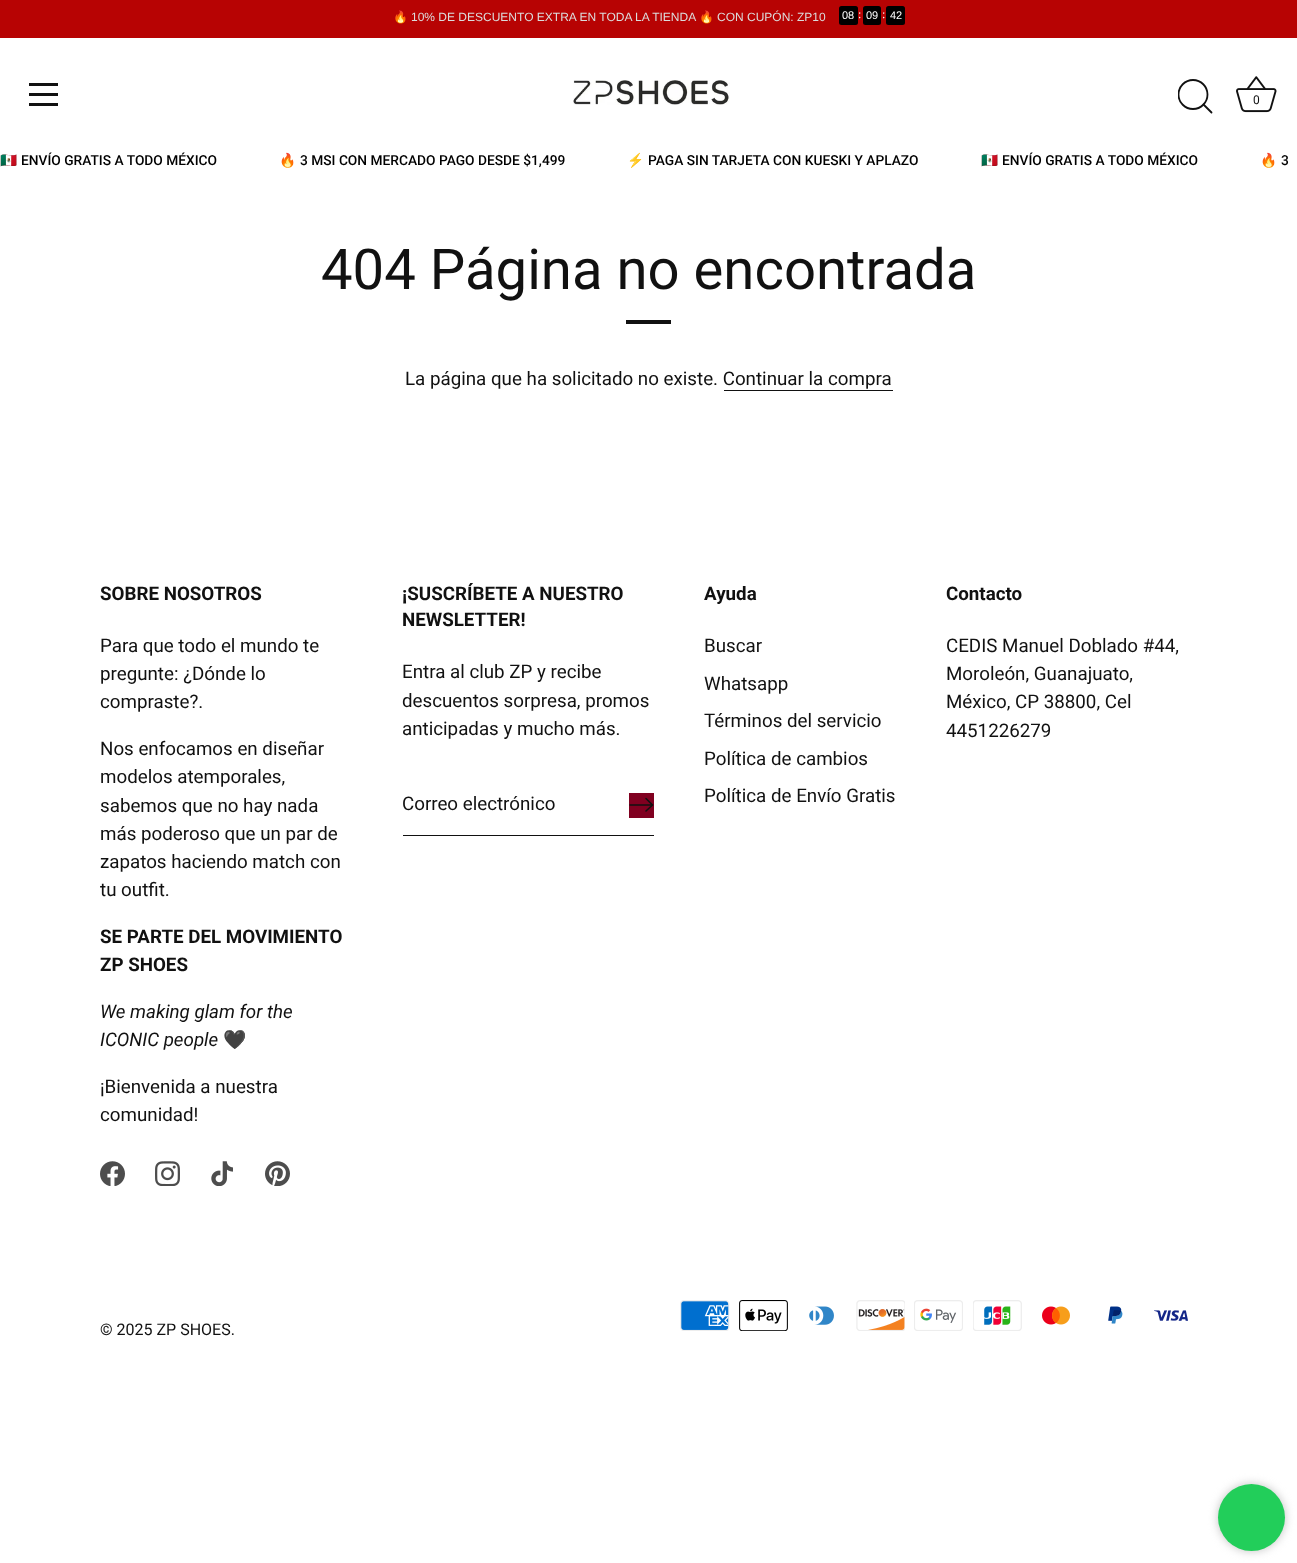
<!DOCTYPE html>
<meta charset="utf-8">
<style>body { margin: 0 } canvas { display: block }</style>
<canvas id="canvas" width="1297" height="1563"></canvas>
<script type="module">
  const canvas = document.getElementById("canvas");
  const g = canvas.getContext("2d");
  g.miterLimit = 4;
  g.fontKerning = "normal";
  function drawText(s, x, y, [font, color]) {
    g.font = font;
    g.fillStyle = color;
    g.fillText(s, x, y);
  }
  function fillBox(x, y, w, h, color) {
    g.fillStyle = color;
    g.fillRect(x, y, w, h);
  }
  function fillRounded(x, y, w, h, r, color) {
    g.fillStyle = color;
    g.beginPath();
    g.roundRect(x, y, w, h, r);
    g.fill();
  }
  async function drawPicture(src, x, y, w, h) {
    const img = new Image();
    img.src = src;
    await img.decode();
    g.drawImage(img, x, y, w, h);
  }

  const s1 = ["12px Noto Color Emoji", "#DCDCDC"];
  const s2 = ["12px Liberation Sans", "#DCDCDC"];
  const s3 = ["11px Liberation Sans", "#FFFFFF"];
  const s4 = ["12px Liberation Serif", "#FFFFFF"];
  const s5 = ["12px Roboto", "#111111"];
  const s6 = ["13.75px Noto Color Emoji", "#000000"];
  const s7 = ["500 13.75px Roboto", "#000000"];
  const s8 = ["56.25px Roboto", "#111111"];
  const s9 = ["18.75px Roboto", "#111111"];
  const s10 = ["bold 18.75px Roboto", "#111111"];
  const s11 = ["italic 18.75px Roboto", "#111111"];
  const s12 = ["18.75px Noto Color Emoji", "#111111"];
  const s13 = ["16px Roboto", "#111111"];

  fillBox(0, 0, 1297, 1563, "#FFFFFF");
  fillBox(0, 0, 1297, 38, "#B70303");
  drawText("🔥", 393, 21, s1);
  drawText("10% DE DESCUENTO EXTRA EN TODA LA TIENDA", 411, 21, s2);
  drawText("🔥", 699, 21, s1);
  drawText("CON CUPÓN: ZP10", 717, 21, s2);
  fillRounded(839, 6, 19, 19, 2.5, "#000000");
  drawText("08", 842, 19, s3);
  drawText(":", 858, 18, s4);
  fillRounded(863, 6, 18, 19, 2.5, "#000000");
  drawText("09", 866, 19, s3);
  drawText(":", 882, 18, s4);
  fillRounded(886, 6, 19, 19, 2.5, "#000000");
  drawText("42", 890, 19, s3);
  fillBox(29, 83, 29, 3, "#111111");
  fillBox(29, 93, 29, 3, "#111111");
  fillBox(29, 103, 29, 3, "#111111");
  await drawPicture("pic1.png", 573, 80, 157, 25);
  g.save();
  g.beginPath();
  g.rect(1178, 79, 36, 36);
  g.clip();
  g.beginPath();
  g.arc(1193, 94.5, 14.5, 0, Math.PI * 2);
  g.strokeStyle = "#111111";
  g.lineWidth = 1.8;
  g.stroke();
  g.restore();
  g.beginPath();
  g.moveTo(1211.5, 112.5);
  g.lineTo(1203.5, 104.5);
  g.strokeStyle = "#111111";
  g.lineWidth = 1.8;
  g.lineCap = "round";
  g.lineJoin = "round";
  g.stroke();
  await drawPicture("pic2.png", 1236, 76, 41, 37);
  drawText("0", 1253, 104, s5);
  drawText("🇲🇽", 0, 165, s6);
  drawText("ENVÍO GRATIS A TODO MÉXICO", 21, 165, s7);
  drawText("🔥", 279, 165, s6);
  drawText("3 MSI CON MERCADO PAGO DESDE $1,499", 300, 165, s7);
  drawText("⚡️", 627, 165, s6);
  drawText("PAGA SIN TARJETA CON KUESKI Y APLAZO", 648, 165, s7);
  drawText("🇲🇽", 981, 165, s6);
  drawText("ENVÍO GRATIS A TODO MÉXICO", 1002, 165, s7);
  drawText("🔥", 1260, 165, s6);
  drawText("3", 1281, 165, s7);
  drawText("404 Página no encontrada", 321, 289, s8);
  fillBox(626, 320, 45, 4, "#111111");
  drawText("La página que ha solicitado no existe. Continuar la compra", 405, 385, s9);
  fillBox(724, 390, 169, 1, "#111111");
  drawText("SOBRE NOSOTROS", 100, 600, s10);
  drawText("Para que todo el mundo te", 100, 652, s9);
  drawText("pregunte: ¿Dónde lo", 100, 680, s9);
  drawText("compraste?.", 100, 708, s9);
  drawText("Nos enfocamos en diseñar", 100, 755, s9);
  drawText("modelos atemporales,", 100, 783, s9);
  drawText("sabemos que no hay nada", 100, 812, s9);
  drawText("más poderoso que un par de", 100, 840, s9);
  drawText("zapatos haciendo match con", 100, 868, s9);
  drawText("tu outfit.", 100, 896, s9);
  drawText("SE PARTE DEL MOVIMIENTO", 100, 943, s10);
  drawText("ZP SHOES", 100, 971, s10);
  drawText("We making glam for the", 100, 1018, s11);
  drawText("ICONIC people", 100, 1046, s11);
  drawText("🖤", 223, 1046, s12);
  drawText("¡Bienvenida a nuestra", 100, 1093, s9);
  drawText("comunidad!", 100, 1121, s9);
  await drawPicture("pic3.png", 100, 1161, 25, 25);
  await drawPicture("pic4.png", 155, 1161, 25, 25);
  await drawPicture("pic5.png", 211, 1161, 22, 25);
  await drawPicture("pic6.png", 265, 1161, 25, 25);
  drawText("¡SUSCRÍBETE A NUESTRO", 402, 600, s10);
  drawText("NEWSLETTER!", 402, 626, s10);
  drawText("Entra al club ZP y recibe", 402, 678, s9);
  drawText("descuentos sorpresa, promos", 402, 707, s9);
  drawText("anticipadas y mucho más.", 402, 735, s9);
  fillBox(403, 835, 251, 1, "#111111");
  drawText("Correo electrónico", 402, 810, s9);
  fillBox(629, 793, 25, 25, "#800020");
  g.beginPath();
  g.moveTo(646, 811);
  g.lineTo(652.5, 805);
  g.lineTo(646, 798.5);
  g.lineWidth = 1.6;
  g.lineJoin = "miter";
  g.stroke();
  g.beginPath();
  g.moveTo(651.5, 805);
  g.lineTo(630, 805);
  g.lineJoin = "round";
  g.stroke();
  drawText("Ayuda", 704, 600, s10);
  drawText("Buscar", 704, 652, s9);
  drawText("Whatsapp", 704, 690, s9);
  drawText("Términos del servicio", 704, 727, s9);
  drawText("Política de cambios", 704, 765, s9);
  drawText("Política de Envío Gratis", 704, 802, s9);
  drawText("Contacto", 946, 600, s10);
  drawText("CEDIS Manuel Doblado #44,", 946, 652, s9);
  drawText("Moroleón, Guanajuato,", 946, 680, s9);
  drawText("México, CP 38800, Cel", 946, 708, s9);
  drawText("4451226279", 946, 737, s9);
  drawText("© 2025 ZP SHOES.", 100, 1335, s13);
  await drawPicture("pic7.png", 680, 1300, 50, 31);
  await drawPicture("pic8.png", 739, 1300, 49, 31);
  await drawPicture("pic9.png", 809, 1306, 25, 19);
  await drawPicture("pic10.png", 856, 1300, 49, 31);
  await drawPicture("pic11.png", 914, 1300, 49, 31);
  await drawPicture("pic12.png", 973, 1300, 49, 31);
  await drawPicture("pic13.png", 1042, 1306, 28, 19);
  await drawPicture("pic14.png", 1108, 1306, 15, 18);
  await drawPicture("pic15.png", 1154, 1310, 34, 11);
  g.fillStyle = "#C2C2C2";
  g.filter = "blur(5px)";
  g.beginPath();
  g.roundRect(1218, 1484, 67, 67, 33.5);
  g.fill();
  g.filter = "none";
  g.fillStyle = "#22CE5A";
  g.beginPath();
  g.arc(1251.5, 1517.5, 33.5, 0, Math.PI * 2);
  g.fill();
</script>
